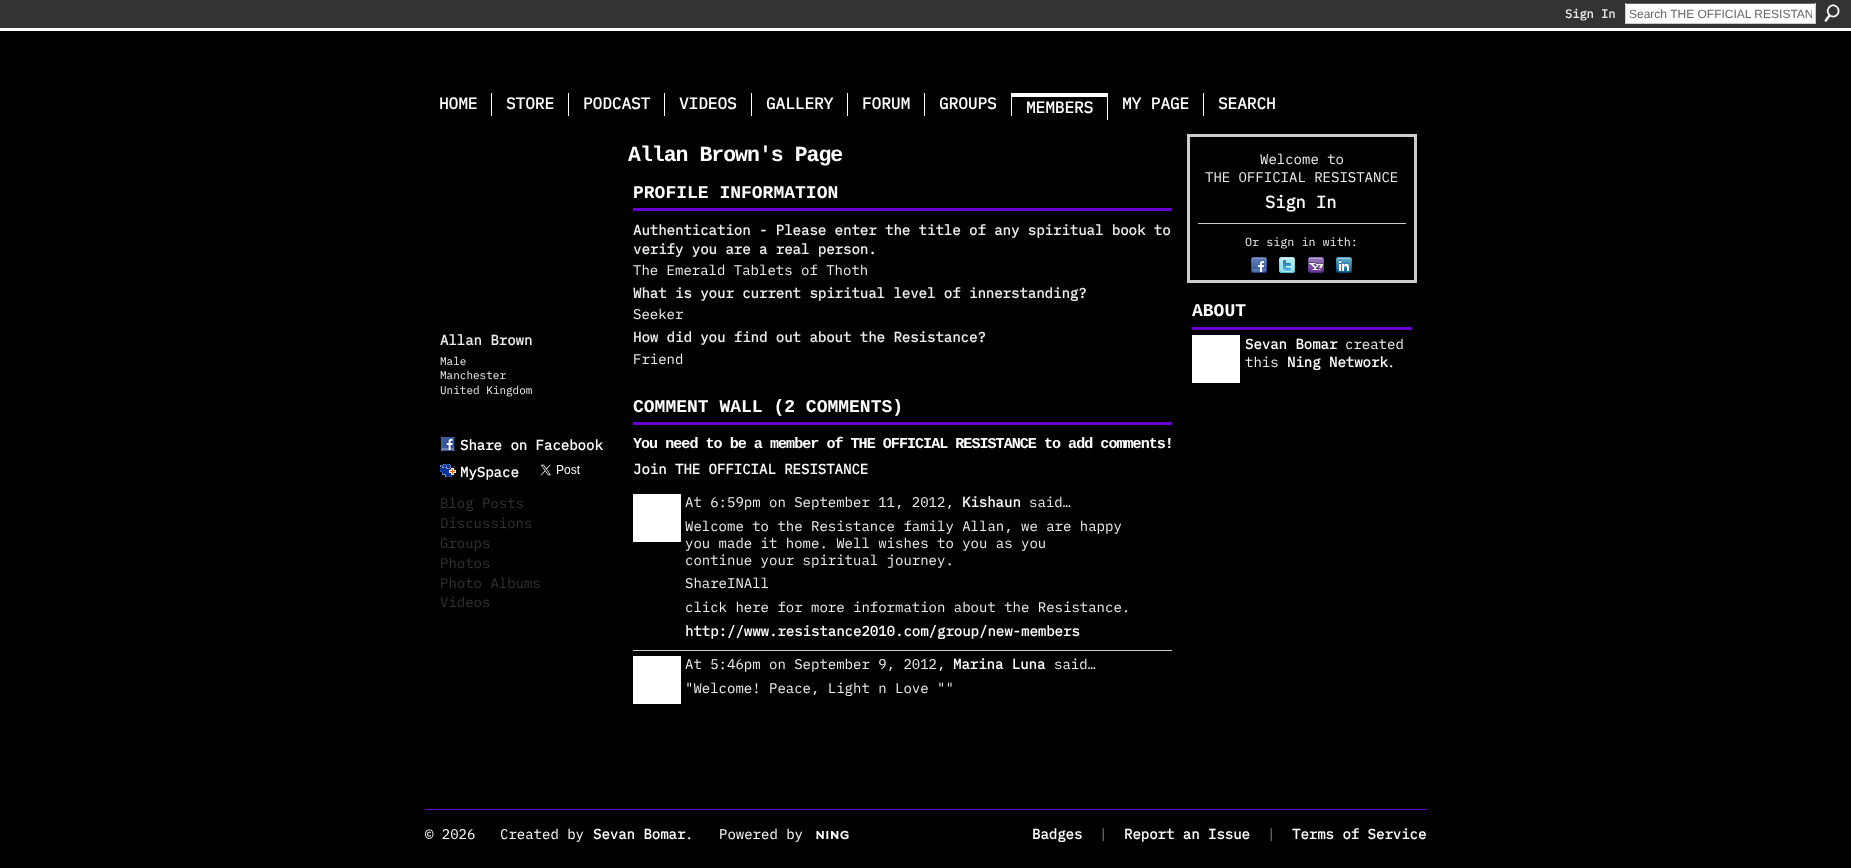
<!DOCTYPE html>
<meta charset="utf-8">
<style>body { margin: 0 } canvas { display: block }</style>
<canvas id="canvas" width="1851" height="868"></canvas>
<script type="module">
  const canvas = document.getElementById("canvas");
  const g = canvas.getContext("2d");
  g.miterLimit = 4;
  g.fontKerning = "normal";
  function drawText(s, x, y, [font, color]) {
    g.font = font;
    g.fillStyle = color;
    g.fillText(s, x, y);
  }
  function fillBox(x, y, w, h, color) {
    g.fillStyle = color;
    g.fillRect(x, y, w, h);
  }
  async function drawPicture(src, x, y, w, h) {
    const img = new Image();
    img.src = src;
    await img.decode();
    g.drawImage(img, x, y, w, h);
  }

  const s1 = ["bold 12px IBM Plex Mono", "#EEEEEE"];
  const s2 = ["12px Liberation Sans", "#666666"];
  const s3 = ["bold 16px IBM Plex Mono", "#FFFFFF"];
  const s4 = ["bold 14px IBM Plex Mono", "#EEEEEE"];
  const s5 = ["11px IBM Plex Mono", "#EEEEEE"];
  const s6 = ["bold 14px IBM Plex Mono", "#FFFFFF"];
  const s7 = ["14px IBM Plex Mono", "#333333"];
  const s8 = ["bold 21.5px Liberation Mono", "#FFFFFF"];
  const s9 = ["bold 18px Liberation Mono", "#FFFFFF"];
  const s10 = ["14px IBM Plex Mono", "#EEEEEE"];
  const s11 = ["bold 15.1px Liberation Mono", "#FFFFFF"];
  const s12 = ["bold 17px IBM Plex Mono", "#FFFFFF"];
  const s13 = ["11.75px IBM Plex Mono", "#EEEEEE"];
  const s14 = ["14px IBM Plex Mono", "#FFFFFF"];
  const s15 = ["14px IBM Plex Mono", "#7F7F7F"];

  fillBox(0, 0, 1851, 868, "#000000");
  fillBox(0, 0, 1851, 28, "#333333");
  drawText("Sign In", 1565, 18, s1);
  fillBox(1626, 4, 189, 19, "#FFFFFF");
  fillBox(1625, 3, 191, 1, "#666666");
  fillBox(1815, 3, 1, 21, "#CCCCCC");
  fillBox(1625, 23, 191, 1, "#CCCCCC");
  fillBox(1625, 3, 1, 21, "#CCCCCC");
  g.save();
  g.beginPath();
  g.rect(1629, 7, 183, 14);
  g.clip();
  drawText("Search THE OFFICIAL RESISTAN", 1629, 18, s2);
  g.restore();
  await drawPicture("pic1.png", 1824, 4, 16, 18);
  fillBox(0, 28, 1851, 3, "#FFFFFF");
  fillBox(491, 93, 1, 23, "#FFFFFF");
  drawText("HOME", 439, 109, s3);
  fillBox(568, 93, 1, 23, "#FFFFFF");
  drawText("STORE", 506, 109, s3);
  fillBox(664, 93, 1, 23, "#FFFFFF");
  drawText("PODCAST", 583, 109, s3);
  fillBox(751, 93, 1, 23, "#FFFFFF");
  drawText("VIDEOS", 679, 109, s3);
  fillBox(847, 93, 1, 23, "#FFFFFF");
  drawText("GALLERY", 766, 109, s3);
  fillBox(924, 93, 1, 23, "#FFFFFF");
  drawText("FORUM", 862, 109, s3);
  fillBox(1011, 93, 1, 23, "#FFFFFF");
  drawText("GROUPS", 939, 109, s3);
  fillBox(1012, 93, 96, 4, "#FFFFFF");
  fillBox(1107, 93, 1, 27, "#FFFFFF");
  drawText("MEMBERS", 1026, 113, s3);
  fillBox(1203, 93, 1, 23, "#FFFFFF");
  drawText("MY PAGE", 1122, 109, s3);
  drawText("SEARCH", 1218, 109, s3);
  drawText("Allan Brown", 440, 345, s4);
  drawText("Male", 440, 365, s5);
  drawText("Manchester", 440, 379, s5);
  drawText("United Kingdom", 440, 394, s5);
  await drawPicture("pic2.png", 441, 437, 14, 14);
  drawText("Share on Facebook", 460, 450, s6);
  await drawPicture("pic3.png", 440, 464, 16, 13);
  drawText("MySpace", 460, 477, s6);
  await drawPicture("pic4.png", 540, 464, 40, 12);
  drawText("Blog Posts", 440, 508, s7);
  drawText("Discussions", 440, 528, s7);
  drawText("Groups", 440, 548, s7);
  drawText("Photos", 440, 568, s7);
  drawText("Photo Albums", 440, 588, s7);
  drawText("Videos", 440, 607, s7);
  g.letterSpacing = "-1px";
  drawText("Allan Brown's Page", 628, 161, s8);
  fillBox(633, 208, 539, 3, "#6500D0");
  g.letterSpacing = "0px";
  drawText("PROFILE INFORMATION", 633, 198, s9);
  drawText("Authentication - Please enter the title of any spiritual book to", 633, 235, s4);
  drawText("verify you are a real person.", 633, 254, s4);
  drawText("The Emerald Tablets of Thoth", 633, 275, s10);
  drawText("What is your current spiritual level of innerstanding?", 633, 298, s4);
  drawText("Seeker", 633, 319, s10);
  drawText("How did you find out about the Resistance?", 633, 342, s4);
  drawText("Friend", 633, 364, s10);
  fillBox(633, 422, 539, 3, "#6500D0");
  drawText("COMMENT WALL (2 COMMENTS)", 633, 412, s9);
  g.letterSpacing = "-1px";
  drawText("You need to be a member of THE OFFICIAL RESISTANCE to add comments!", 633, 448, s11);
  g.letterSpacing = "0px";
  drawText("Join THE OFFICIAL RESISTANCE", 633, 474, s6);
  fillBox(633, 650, 539, 1, "#CBCBCB");
  drawText("At 6:59pm on September 11, 2012,", 685, 507, s10);
  fillBox(633, 494, 48, 48, "#FFFFFF");
  drawText("Kishaun", 962, 507, s6);
  drawText("said…", 1029, 507, s10);
  drawText("Welcome to the Resistance family Allan, we are happy", 685, 531, s10);
  drawText("you made it home. Well wishes to you as you", 685, 548, s10);
  drawText("continue your spiritual journey.", 685, 565, s10);
  drawText("ShareINAll", 685, 588, s10);
  drawText("click here for more information about the Resistance.", 685, 612, s10);
  drawText("http://www.resistance2010.com/group/new-members", 685, 636, s6);
  drawText("At 5:46pm on September 9, 2012,", 685, 669, s10);
  fillBox(633, 656, 48, 48, "#FFFFFF");
  drawText("Marina Luna", 953, 669, s6);
  drawText("said…", 1054, 669, s10);
  drawText("\"Welcome! Peace, Light n Love \"\"", 685, 693, s10);
  g.strokeStyle = "#CBCBCB";
  g.lineWidth = 3;
  g.strokeRect(1188.5, 135.5, 227, 146);
  drawText("Welcome to", 1260, 164, s10);
  drawText("THE OFFICIAL RESISTANCE", 1205, 182, s10);
  drawText("Sign In", 1265, 208, s12);
  fillBox(1198, 223, 208, 1, "#CBCBCB");
  drawText("Or sign in with:", 1245, 246, s13);
  await drawPicture("pic5.png", 1251, 257, 16, 16);
  await drawPicture("pic6.png", 1279, 257, 16, 16);
  await drawPicture("pic7.png", 1308, 257, 16, 16);
  await drawPicture("pic8.png", 1336, 257, 16, 16);
  fillBox(1192, 327, 220, 3, "#6500D0");
  drawText("ABOUT", 1192, 316, s9);
  fillBox(1192, 335, 48, 48, "#FFFFFF");
  drawText("Sevan Bomar", 1245, 349, s6);
  drawText("created", 1345, 349, s10);
  drawText("this", 1245, 367, s10);
  drawText("Ning Network", 1287, 367, s6);
  drawText(".", 1387, 367, s10);
  fillBox(425, 809, 1002, 1, "#6500D0");
  drawText("© 2026", 425, 839, s14);
  drawText("Created by", 500, 839, s14);
  drawText("Sevan Bomar", 593, 839, s6);
  drawText(".", 685, 839, s14);
  drawText("Powered by", 719, 839, s14);
  await drawPicture("pic9.png", 816, 830, 33, 10);
  drawText("Badges", 1032, 839, s6);
  drawText("|", 1099, 839, s15);
  drawText("Report an Issue", 1124, 839, s6);
  drawText("|", 1267, 839, s15);
  drawText("Terms of Service", 1292, 839, s6);
</script>
